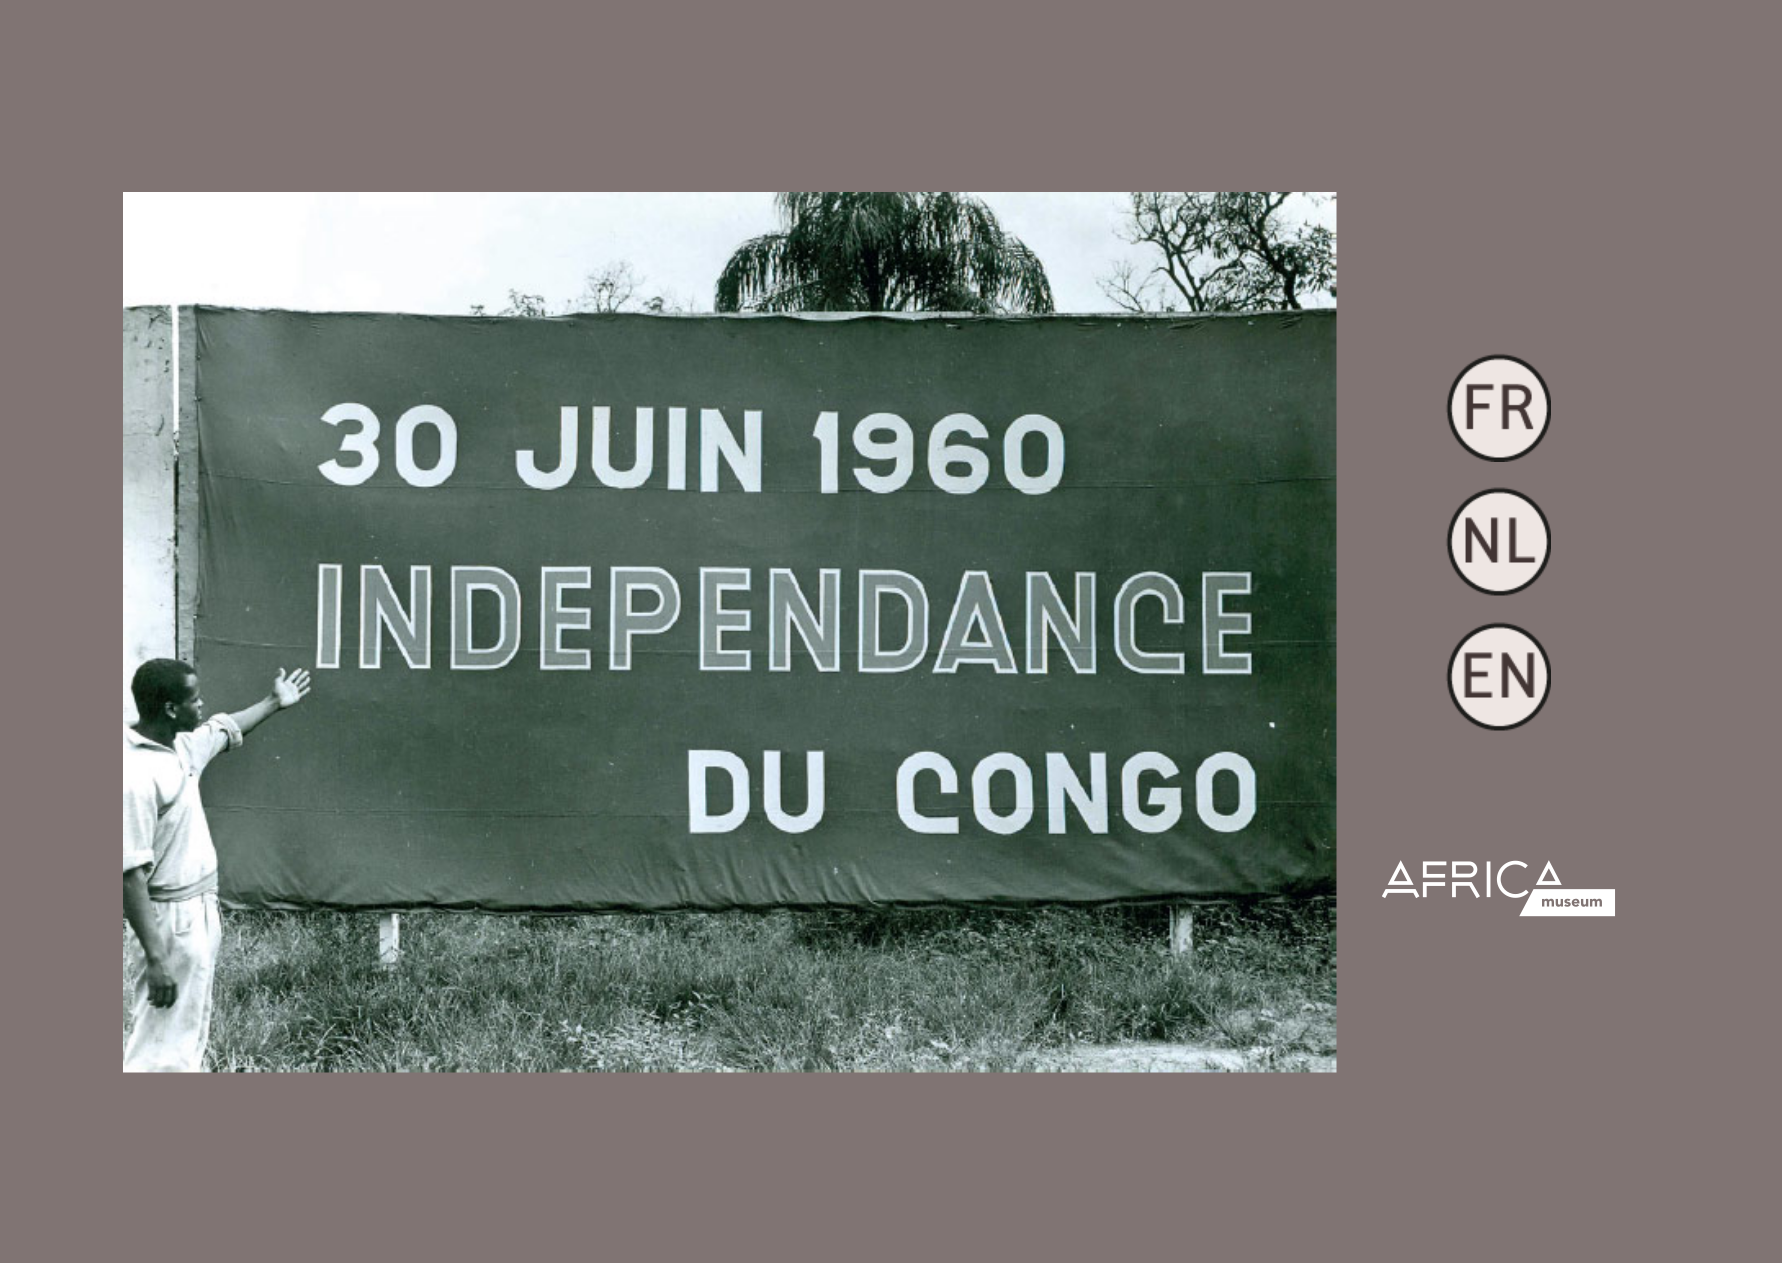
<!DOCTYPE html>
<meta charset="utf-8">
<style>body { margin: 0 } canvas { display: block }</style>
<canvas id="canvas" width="1782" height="1263"></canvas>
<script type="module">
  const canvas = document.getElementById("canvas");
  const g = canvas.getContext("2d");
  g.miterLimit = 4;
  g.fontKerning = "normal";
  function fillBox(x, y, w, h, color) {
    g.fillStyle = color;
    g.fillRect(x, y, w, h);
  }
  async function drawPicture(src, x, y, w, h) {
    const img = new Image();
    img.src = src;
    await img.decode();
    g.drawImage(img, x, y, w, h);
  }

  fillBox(0, 0, 1782, 1263, "#807473");
  await drawPicture("pic1.png", 123, 192, 1214, 881);
  await drawPicture("pic2.png", 1445, 353, 106, 109);
  await drawPicture("pic3.png", 1445, 487, 106, 109);
  await drawPicture("pic4.png", 1445, 622, 106, 109);
  await drawPicture("pic5.png", 1382, 860, 234, 57);
</script>
